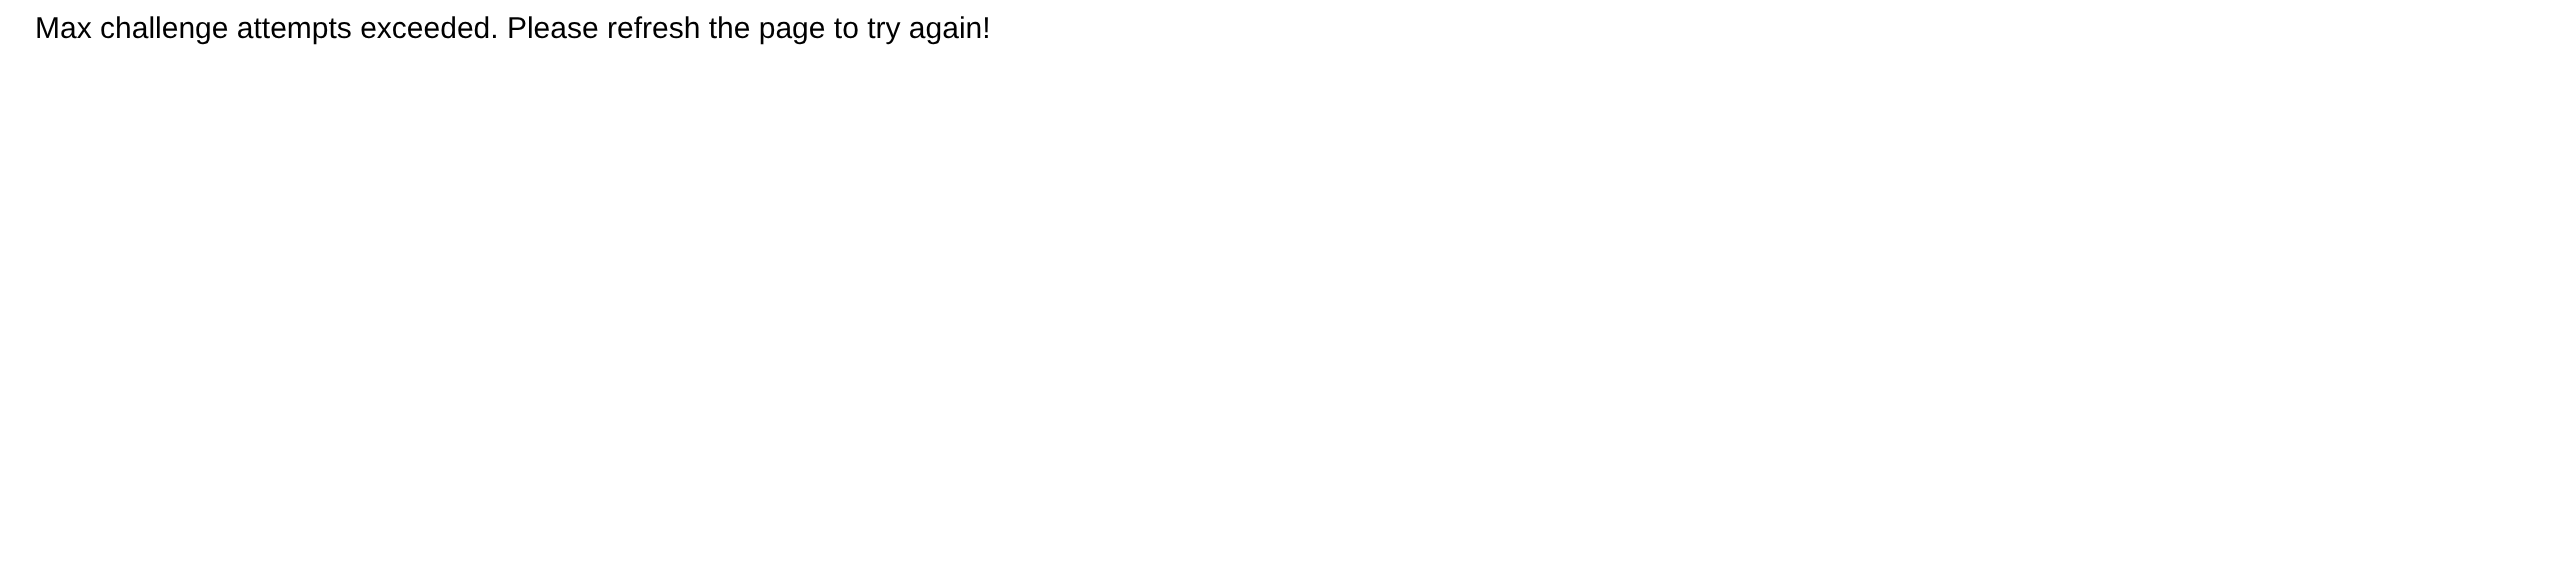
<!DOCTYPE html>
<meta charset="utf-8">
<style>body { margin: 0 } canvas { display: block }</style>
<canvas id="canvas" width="2556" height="577"></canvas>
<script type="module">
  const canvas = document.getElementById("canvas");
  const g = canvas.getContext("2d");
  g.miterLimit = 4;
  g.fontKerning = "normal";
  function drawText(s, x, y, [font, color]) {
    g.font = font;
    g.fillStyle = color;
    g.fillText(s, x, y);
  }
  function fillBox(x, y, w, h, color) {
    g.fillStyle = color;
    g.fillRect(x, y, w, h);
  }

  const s1 = ["30px Liberation Sans", "#000000"];

  fillBox(0, 0, 2556, 577, "#FFFFFF");
  drawText("Max challenge attempts exceeded. Please refresh the page to try again!", 35, 38, s1);
</script>
